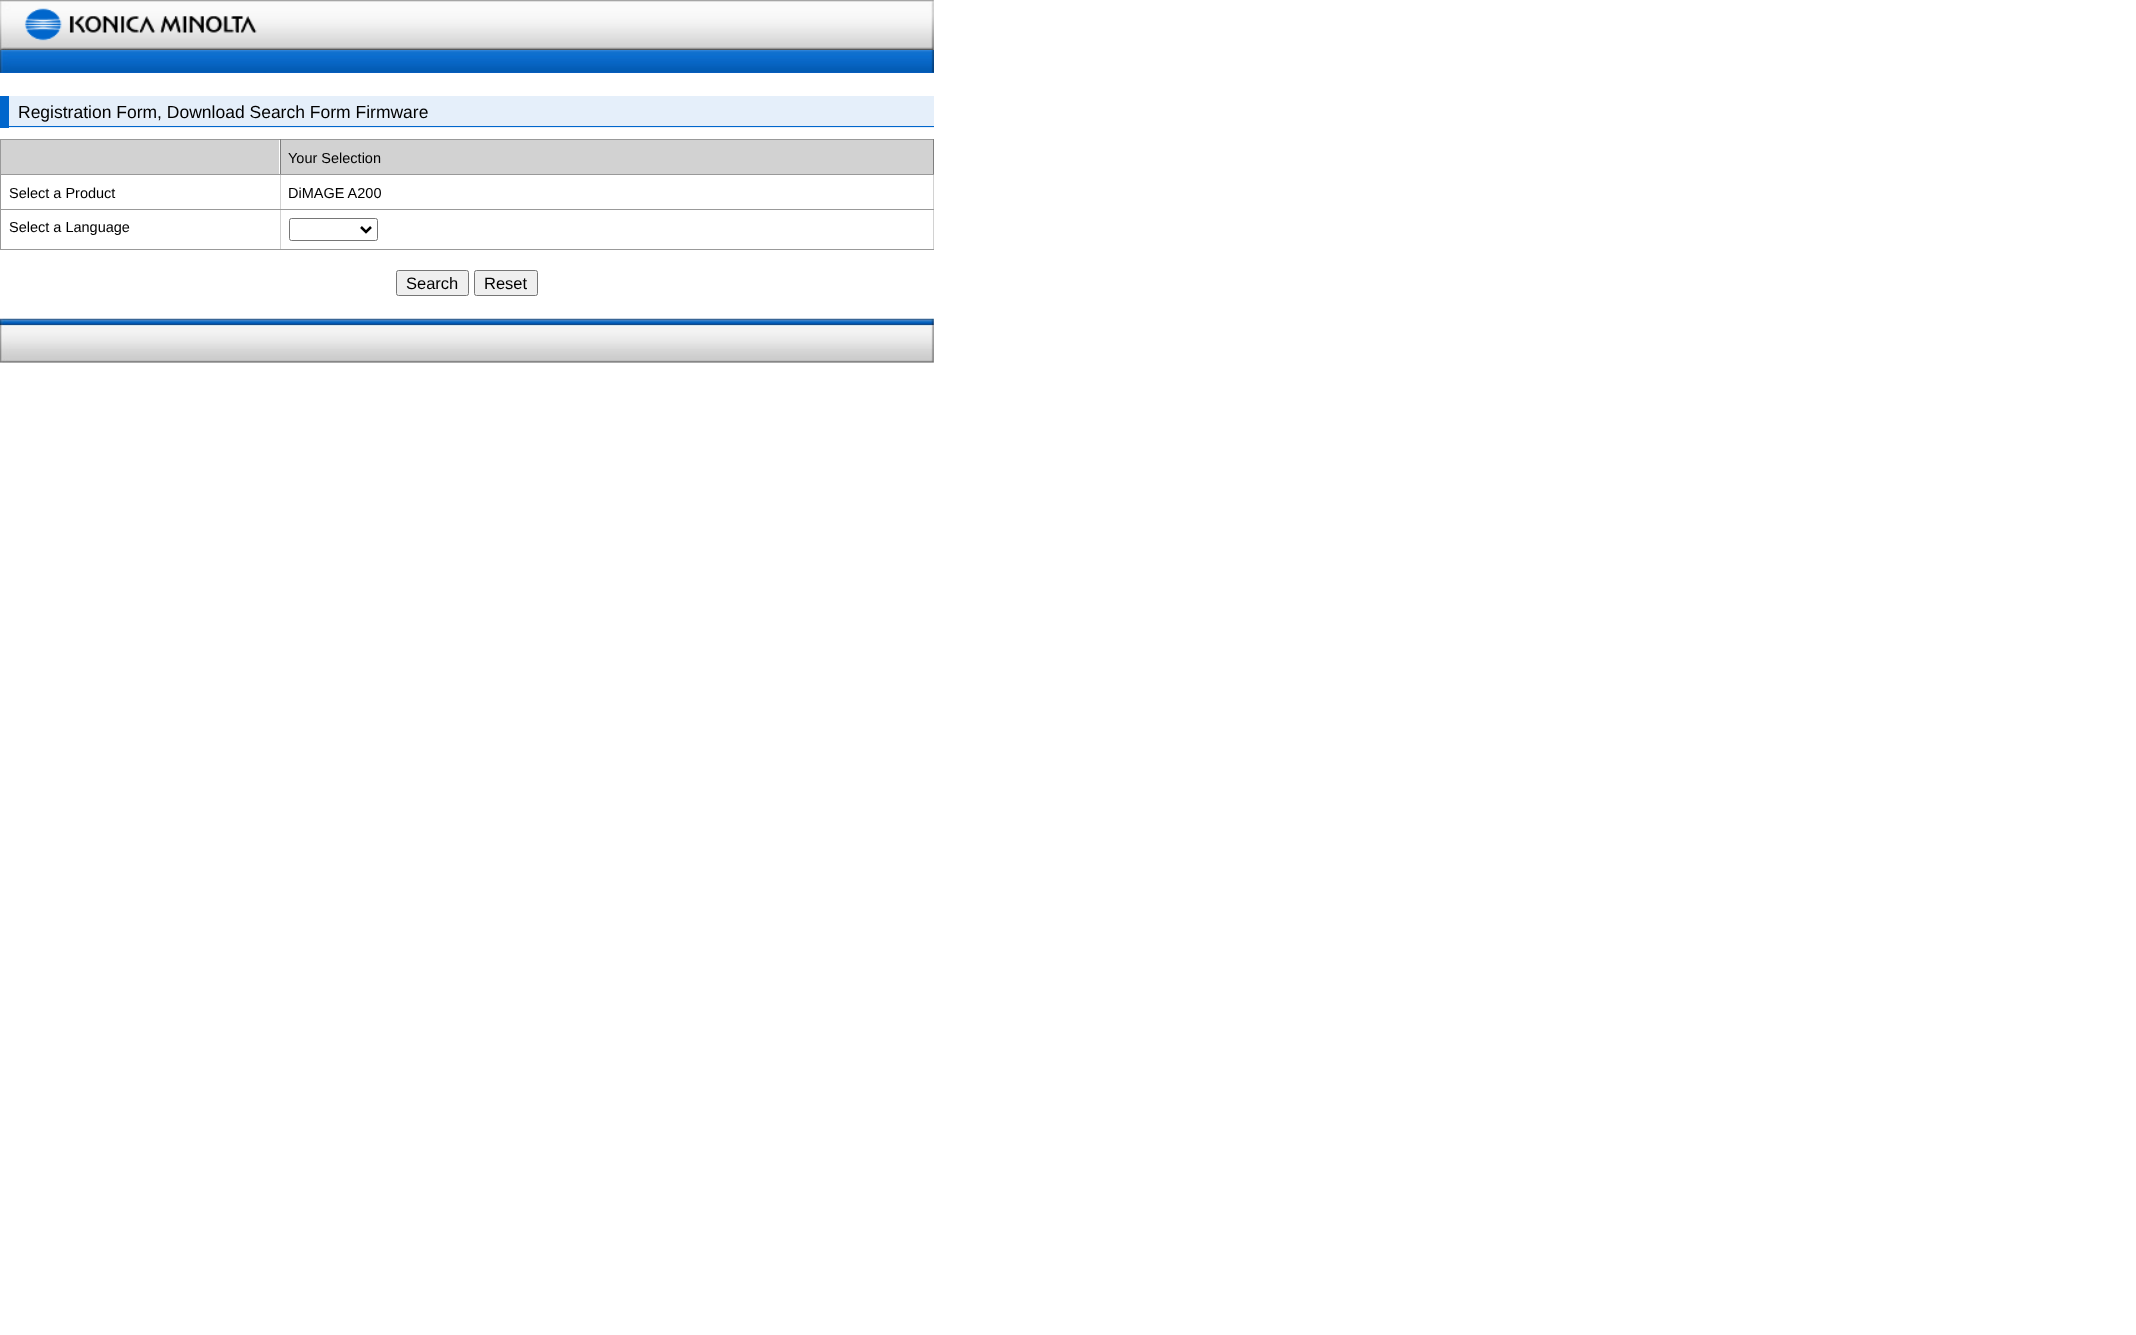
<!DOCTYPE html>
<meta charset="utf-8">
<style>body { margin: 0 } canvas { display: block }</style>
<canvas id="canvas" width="2136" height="1335"></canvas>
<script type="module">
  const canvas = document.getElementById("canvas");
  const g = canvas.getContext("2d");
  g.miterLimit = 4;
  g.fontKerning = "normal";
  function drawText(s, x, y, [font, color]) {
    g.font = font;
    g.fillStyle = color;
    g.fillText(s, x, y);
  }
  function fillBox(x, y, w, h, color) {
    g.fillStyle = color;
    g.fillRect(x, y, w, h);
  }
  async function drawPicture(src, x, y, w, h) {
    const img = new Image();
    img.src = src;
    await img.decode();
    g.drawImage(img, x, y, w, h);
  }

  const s1 = ["17.5px Liberation Sans", "#000000"];
  const s2 = ["14.5px Liberation Sans", "#000000"];
  const s3 = ["16.5px Liberation Sans", "#000000"];

  fillBox(0, 0, 2136, 1335, "#FFFFFF");
  await drawPicture("pic1.png", 0, 0, 934, 50);
  await drawPicture("pic2.png", 24, 8, 233, 33);
  fillBox(0, 50, 934, 23, "#0963C4");
  await drawPicture("pic3.png", 0, 50, 934, 23);
  fillBox(9, 96, 925, 32, "#E5EFFA");
  fillBox(9, 126, 925, 1, "#0066CC");
  fillBox(0, 96, 9, 32, "#0066CC");
  drawText("Registration Form, Download Search Form Firmware", 18, 118, s1);
  fillBox(0, 139, 934, 1, "#999999");
  fillBox(0, 139, 1, 111, "#999999");
  fillBox(1, 140, 278, 34, "#D2D2D2");
  fillBox(933, 174, 1, 76, "#D2D2D2");
  fillBox(933, 139, 1, 36, "#7E7E7E");
  fillBox(280, 249, 654, 1, "#999999");
  fillBox(280, 209, 1, 41, "#D2D2D2");
  fillBox(280, 209, 654, 1, "#999999");
  fillBox(280, 174, 1, 36, "#D2D2D2");
  fillBox(280, 174, 654, 1, "#999999");
  fillBox(280, 139, 1, 36, "#7E7E7E");
  fillBox(0, 174, 281, 1, "#999999");
  fillBox(281, 140, 652, 34, "#D2D2D2");
  drawText("Your Selection", 288, 163, s2);
  fillBox(0, 209, 281, 1, "#999999");
  drawText("Select a Product", 9, 198, s2);
  drawText("DiMAGE A200", 288, 198, s2);
  fillBox(0, 249, 281, 1, "#999999");
  drawText("Select a Language", 9, 232, s2);
  g.beginPath();
  g.roundRect(289.5, 218.5, 88, 22, 2);
  g.strokeStyle = "#767676";
  g.stroke();
  g.beginPath();
  g.moveTo(361, 227);
  g.lineTo(366, 232);
  g.lineTo(371, 227);
  g.strokeStyle = "#000000";
  g.lineWidth = 2.5;
  g.stroke();
  g.fillStyle = "#EFEFEF";
  g.beginPath();
  g.roundRect(396.5, 270.5, 72, 25, 2);
  g.fill();
  g.strokeStyle = "#767676";
  g.lineWidth = 1;
  g.stroke();
  drawText("Search", 406, 289, s3);
  g.fillStyle = "#EFEFEF";
  g.beginPath();
  g.roundRect(474.5, 270.5, 63, 25, 2);
  g.fill();
  g.stroke();
  drawText("Reset", 484, 289, s3);
  fillBox(0, 319, 934, 44, "#E7E7E7");
  await drawPicture("pic4.png", 0, 318, 934, 45);
</script>
